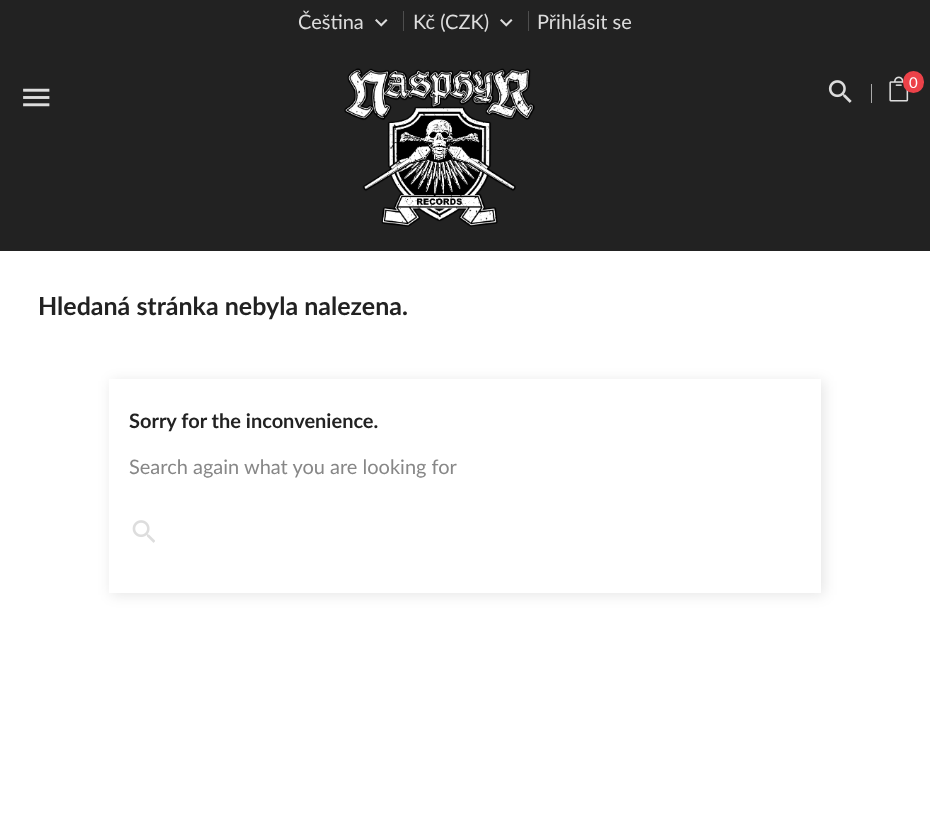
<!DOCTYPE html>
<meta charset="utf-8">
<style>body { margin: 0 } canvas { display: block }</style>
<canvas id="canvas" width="930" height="825"></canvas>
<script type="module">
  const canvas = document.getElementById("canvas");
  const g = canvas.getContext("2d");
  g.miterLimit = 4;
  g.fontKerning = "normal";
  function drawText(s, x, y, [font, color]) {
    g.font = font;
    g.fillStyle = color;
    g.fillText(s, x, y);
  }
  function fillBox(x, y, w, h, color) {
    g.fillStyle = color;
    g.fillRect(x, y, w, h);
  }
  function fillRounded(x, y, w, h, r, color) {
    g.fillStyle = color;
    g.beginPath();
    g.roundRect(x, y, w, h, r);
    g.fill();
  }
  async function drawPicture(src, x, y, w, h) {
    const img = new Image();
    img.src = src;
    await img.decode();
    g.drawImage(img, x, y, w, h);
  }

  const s1 = ["20px Lato", "#DDDDDD"];
  const s2 = ["15px Lato", "#FFFFFF"];
  const s3 = ["bold 25px Lato", "#222222"];
  const s4 = ["bold 20px Lato", "#222222"];
  const s5 = ["20px Lato", "#878787"];

  fillBox(0, 0, 930, 825, "#FFFFFF");
  fillBox(0, 0, 930, 251, "#222222");
  drawText("Čeština", 298, 29, s1);
  await drawPicture("pic1.png", 375, 19, 13, 8);
  fillBox(403, 11, 1, 20, "#4E4E4E");
  drawText("Kč (CZK)", 413, 29, s1);
  await drawPicture("pic1.png", 500, 19, 13, 8);
  fillBox(528, 11, 1, 20, "#4E4E4E");
  drawText("Přihlásit se", 537, 29, s1);
  await drawPicture("pic2.png", 344, 68, 191, 159);
  await drawPicture("pic3.png", 828, 80, 24, 23);
  fillBox(871, 84, 1, 19, "#AAAAAA");
  await drawPicture("pic4.png", 889, 76, 20, 26);
  fillRounded(903, 71, 21, 22, 10.5, "#EC4249");
  drawText("0", 909, 88, s2);
  await drawPicture("pic5.png", 23, 88, 27, 19);
  drawText("Hledaná stránka nebyla nalezena.", 38, 315, s3);
  g.fillStyle = "rgba(0, 0, 0, 0.1)";
  g.filter = "blur(7px)";
  g.beginPath();
  g.rect(111, 381, 713, 214);
  g.fill();
  g.filter = "none";
  fillBox(109, 379, 712, 214, "#FFFFFF");
  drawText("Sorry for the inconvenience.", 129, 428, s4);
  drawText("Search again what you are looking for", 129, 474, s5);
  await drawPicture("pic6.png", 132, 520, 23, 23);
</script>
